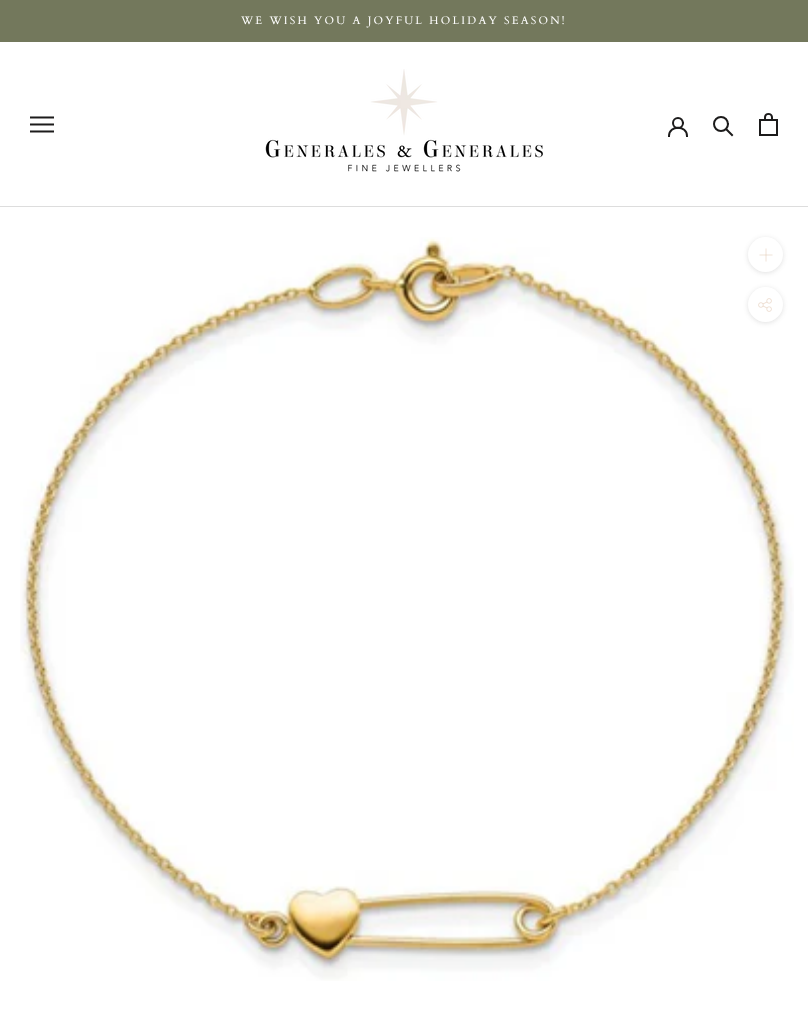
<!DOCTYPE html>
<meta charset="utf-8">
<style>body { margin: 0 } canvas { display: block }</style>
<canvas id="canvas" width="808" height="1011"></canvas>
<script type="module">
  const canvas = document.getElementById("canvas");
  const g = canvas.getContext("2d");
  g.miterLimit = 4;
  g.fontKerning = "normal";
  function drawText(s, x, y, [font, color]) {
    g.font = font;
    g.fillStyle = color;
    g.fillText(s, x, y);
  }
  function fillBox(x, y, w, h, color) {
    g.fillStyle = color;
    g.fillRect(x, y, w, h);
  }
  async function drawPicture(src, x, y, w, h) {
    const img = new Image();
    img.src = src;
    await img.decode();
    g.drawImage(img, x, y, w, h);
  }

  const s1 = ["11px Cardo", "#FFFFFF"];

  fillBox(0, 0, 808, 1011, "#FFFFFF");
  fillBox(0, 0, 808, 42, "#73785C");
  g.letterSpacing = "2.2px";
  drawText("WE WISH YOU A JOYFUL HOLIDAY SEASON!", 241, 24, s1);
  fillBox(0, 206, 808, 1, "#DDDDDD");
  await drawPicture("pic1.png", 30, 116, 24, 17);
  await drawPicture("pic2.png", 265, 69, 278, 103);
  g.beginPath();
  g.moveTo(669, 136);
  g.bezierCurveTo(669, 125, 687, 125, 687, 136);
  g.strokeStyle = "#1C1B1B";
  g.lineWidth = 2;
  g.lineCap = "square";
  g.stroke();
  g.beginPath();
  g.arc(678, 123, 5, 0, Math.PI * 2);
  g.stroke();
  g.beginPath();
  g.moveTo(732, 135);
  g.lineTo(726.5, 129.5);
  g.stroke();
  g.beginPath();
  g.arc(721, 124, 7, 0, Math.PI * 2);
  g.stroke();
  await drawPicture("pic3.png", 759, 113, 19, 23);
  await drawPicture("pic5.png", 20, 237, 774, 744);
  g.fillStyle = "rgba(54, 54, 54, 0.15)";
  g.filter = "blur(2.5px)";
  g.beginPath();
  g.roundRect(748, 238, 35, 35, 17.5);
  g.fill();
  g.filter = "none";
  g.fillStyle = "#FFFFFF";
  g.beginPath();
  g.arc(765.5, 254.5, 17.5, 0, Math.PI * 2);
  g.fill();
  g.beginPath();
  g.moveTo(766, 249);
  g.lineTo(766, 261);
  g.strokeStyle = "#EEDFD3";
  g.lineWidth = 0.9;
  g.stroke();
  g.beginPath();
  g.moveTo(760, 255);
  g.lineTo(772, 255);
  g.strokeStyle = "rgba(220, 190, 166, 0.5)";
  g.stroke();
  g.fillStyle = "rgba(54, 54, 54, 0.15)";
  g.filter = "blur(2.5px)";
  g.beginPath();
  g.roundRect(748, 288, 35, 35, 17.5);
  g.fill();
  g.filter = "none";
  g.fillStyle = "#FFFFFF";
  g.beginPath();
  g.arc(765.5, 304.5, 17.5, 0, Math.PI * 2);
  g.fill();
  await drawPicture("pic4.png", 758, 298, 14, 14);
</script>
